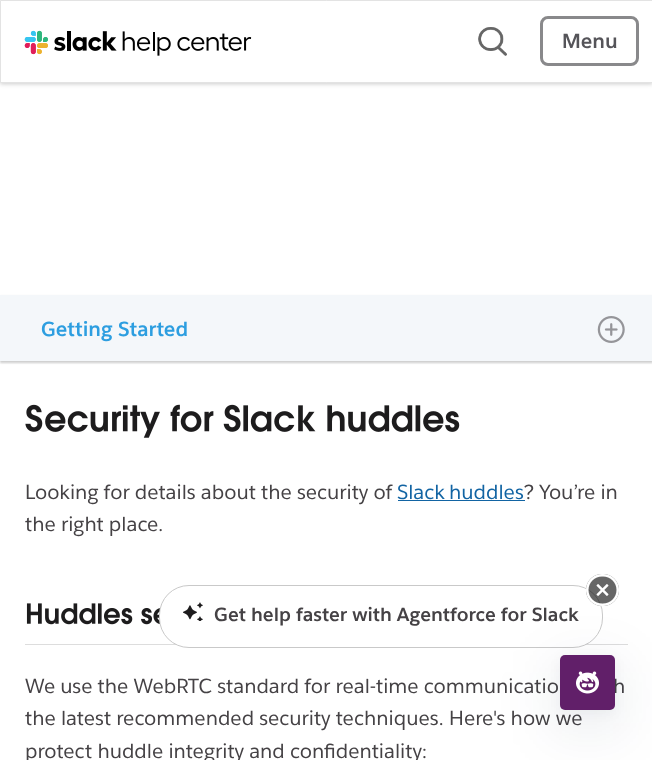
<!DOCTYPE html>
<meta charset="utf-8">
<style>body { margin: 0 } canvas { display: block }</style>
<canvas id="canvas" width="652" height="760"></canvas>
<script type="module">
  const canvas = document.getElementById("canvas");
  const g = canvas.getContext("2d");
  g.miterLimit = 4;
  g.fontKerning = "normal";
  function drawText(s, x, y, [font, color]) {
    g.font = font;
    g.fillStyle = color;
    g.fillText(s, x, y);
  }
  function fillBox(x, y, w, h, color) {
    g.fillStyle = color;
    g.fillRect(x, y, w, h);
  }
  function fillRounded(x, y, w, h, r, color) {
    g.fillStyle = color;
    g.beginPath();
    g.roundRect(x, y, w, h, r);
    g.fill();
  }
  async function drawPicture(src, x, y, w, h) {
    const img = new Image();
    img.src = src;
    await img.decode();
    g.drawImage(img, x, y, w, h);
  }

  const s1 = ["bold 20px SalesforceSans", "#555459"];
  const s2 = ["bold 20px SalesforceSans", "#2D9EE0"];
  const s3 = ["20px SalesforceSans", "#454245"];
  const s4 = ["20px SalesforceSans", "#1264A3"];
  const s5 = ["bold 18.75px SalesforceSans", "#454245"];

  fillBox(0, 0, 652, 760, "#FFFFFF");
  g.fillStyle = "rgba(0, 0, 0, 0.2)";
  g.filter = "blur(2px)";
  g.beginPath();
  g.rect(0, 1, 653, 83);
  g.fill();
  g.filter = "none";
  g.fillStyle = "#FFFFFF";
  g.beginPath();
  g.rect(0.5, 0.5, 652, 82);
  g.fill();
  g.strokeStyle = "#E3E3E3";
  g.stroke();
  await drawPicture("pic1.png", 24, 30, 228, 26);
  await drawPicture("pic2.png", 478, 27, 29, 29);
  g.beginPath();
  g.roundRect(541.5, 17.5, 96, 47, 6.5);
  g.strokeStyle = "#89898B";
  g.lineWidth = 3;
  g.stroke();
  drawText("Menu", 562, 48, s1);
  g.fillStyle = "rgba(0, 0, 0, 0.1)";
  g.filter = "blur(1px)";
  g.beginPath();
  g.rect(0, 296, 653, 67);
  g.fill();
  g.filter = "none";
  fillBox(0, 295, 652, 66, "#F4F7FA");
  g.save();
  g.beginPath();
  g.rect(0, 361, 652, 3);
  g.clip();
  g.fillStyle = "rgba(0, 0, 0, 0.1)";
  g.filter = "blur(1px)";
  g.beginPath();
  g.rect(0, 296, 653, 67);
  g.fill();
  g.filter = "none";
  g.restore();
  drawText("Getting Started", 41, 336, s2);
  await drawPicture("pic3.png", 597, 316, 28, 27);
  await drawPicture("pic4.png", 25, 404, 435, 34);
  drawText("Looking for details about the security of", 25, 499, s3);
  fillBox(398, 500, 127, 1, "#1264A3");
  g.wordSpacing = "-1px";
  drawText("Slack huddles", 397, 499, s4);
  g.wordSpacing = "0px";
  drawText("? You’re in", 524, 499, s3);
  drawText("the right place.", 25, 531, s3);
  fillBox(25, 644, 603, 1, "#DDDDDD");
  await drawPicture("pic5.png", 26, 603, 134, 22);
  drawText("We use the WebRTC standard for real-time communicatio", 25, 693, s3);
  drawText("h", 613, 693, s3);
  drawText("the latest recommended security techniques. Here's how we", 25, 725, s3);
  drawText("protect huddle integrity and confidentiality:", 25, 758, s3);
  g.fillStyle = "#FFFFFF";
  g.beginPath();
  g.roundRect(159.5, 585.5, 443, 62, 29.5);
  g.fill();
  g.strokeStyle = "#C9C9C9";
  g.lineWidth = 1;
  g.stroke();
  g.fillStyle = "rgba(0, 22, 57, 0.04)";
  g.filter = "blur(6px)";
  g.beginPath();
  g.roundRect(560, 658, 55, 55, 5);
  g.fill();
  g.filter = "none";
  await drawPicture("pic7.png", 586, 574, 33, 32);
  g.fillStyle = "rgba(0, 22, 57, 0.12)";
  g.filter = "blur(30px)";
  g.beginPath();
  g.roundRect(560, 670, 55, 55, 5);
  g.fill();
  g.filter = "none";
  fillRounded(560, 655, 55, 55, 5, "#611F69");
  await drawPicture("pic6.png", 576, 671, 23, 23);
  await drawPicture("pic8.png", 183, 602, 20, 19);
  drawText("Get help faster with Agentforce for Slack", 214, 621, s5);
</script>
